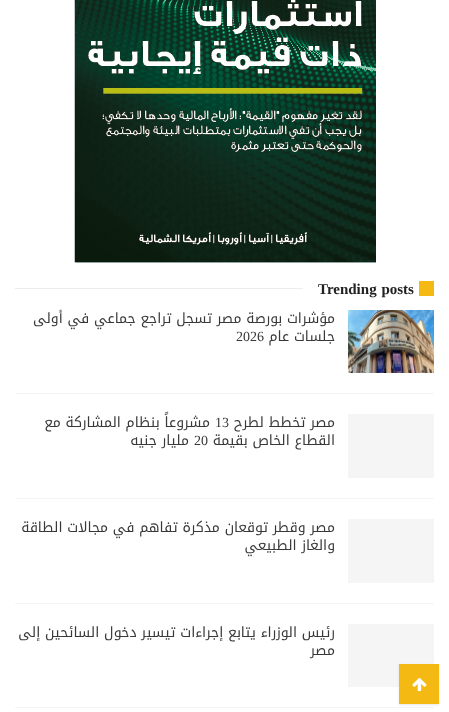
<!DOCTYPE html>
<meta charset="utf-8">
<style>body { margin: 0 } canvas { display: block }</style>
<canvas id="canvas" width="449" height="712"></canvas>
<script type="module">
  const canvas = document.getElementById("canvas");
  const g = canvas.getContext("2d");
  g.miterLimit = 4;
  g.fontKerning = "normal";
  function drawText(s, x, y, [font, color]) {
    g.font = font;
    g.fillStyle = color;
    g.fillText(s, x, y);
  }
  function fillBox(x, y, w, h, color) {
    g.fillStyle = color;
    g.fillRect(x, y, w, h);
  }
  async function drawPicture(src, x, y, w, h) {
    const img = new Image();
    img.src = src;
    await img.decode();
    g.drawImage(img, x, y, w, h);
  }

  const s1 = ["bold 15px Liberation Serif", "#222222"];
  const s2 = ["14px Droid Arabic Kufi", "#383838"];
  const s3 = ["14px Liberation Serif", "#383838"];

  fillBox(0, 0, 449, 712, "#FFFFFF");
  await drawPicture("pic1.png", 74, 0, 302, 263);
  fillBox(419, 281, 15, 15, "#F4BA13");
  g.wordSpacing = "1px";
  drawText("Trending posts", 318, 294, s1);
  fillBox(15, 288, 288, 1, "#EDEDED");
  fillBox(15, 393, 419, 1, "#F2F4F6");
  await drawPicture("pic2.png", 348, 310, 86, 63);
  g.wordSpacing = "0px";
  g.direction = "rtl";
  drawText("مؤشرات بورصة مصر تسجل تراجع جماعي في أولى", 335, 323, s2);
  drawText("جلسات عام", 335, 341, s2);
  g.direction = "ltr";
  drawText("2026", 236, 341, s3);
  fillBox(15, 498, 419, 1, "#F2F4F6");
  fillBox(348, 414, 86, 64, "#F5F5F5");
  g.direction = "rtl";
  drawText("مصر تخطط لطرح", 335, 427, s2);
  g.direction = "ltr";
  drawText("13", 215, 427, s3);
  g.direction = "rtl";
  drawText("مشروعاً بنظام المشاركة مع", 210, 427, s2);
  drawText("القطاع الخاص بقيمة", 335, 445, s2);
  g.direction = "ltr";
  drawText("20", 194, 445, s3);
  g.direction = "rtl";
  drawText("مليار جنيه", 189, 445, s2);
  fillBox(15, 603, 419, 1, "#F2F4F6");
  fillBox(348, 519, 86, 64, "#F5F5F5");
  drawText("مصر وقطر توقعان مذكرة تفاهم في مجالات الطاقة", 335, 532, s2);
  drawText("والغاز الطبيعي", 335, 550, s2);
  fillBox(15, 707, 419, 1, "#F2F4F6");
  fillBox(348, 624, 86, 63, "#F5F5F5");
  drawText("رئيس الوزراء يتابع إجراءات تيسير دخول السائحين إلى", 335, 637, s2);
  drawText("مصر", 335, 655, s2);
  g.fillStyle = "rgba(0, 0, 0, 0.09)";
  g.filter = "blur(1px)";
  g.beginPath();
  g.rect(399, 665, 40, 40);
  g.fill();
  g.filter = "none";
  fillBox(399, 664, 40, 40, "#F4BA13");
  await drawPicture("pic3.png", 412, 678, 15, 14);
</script>
